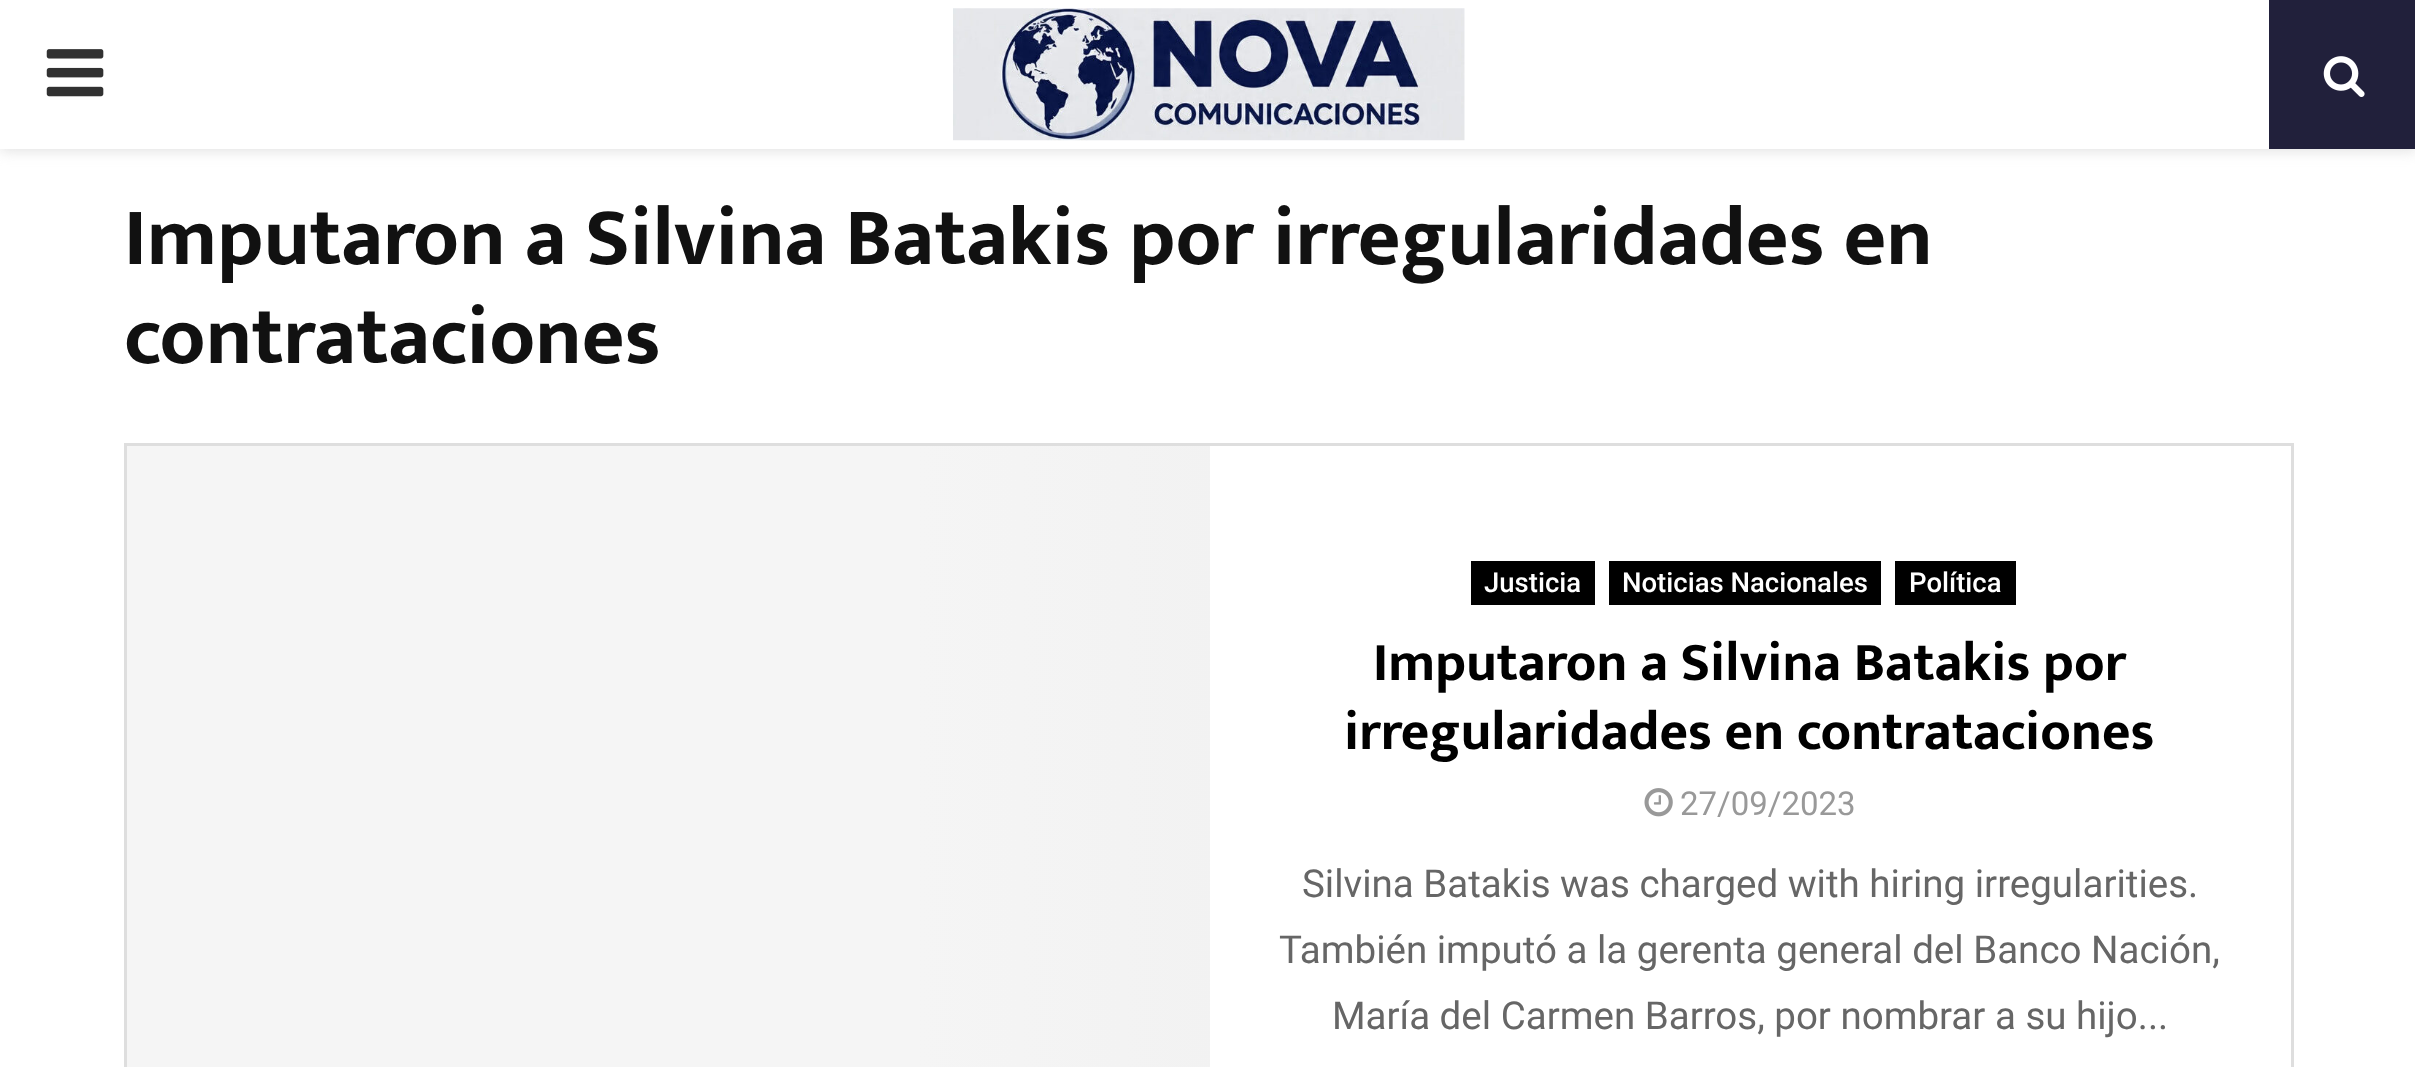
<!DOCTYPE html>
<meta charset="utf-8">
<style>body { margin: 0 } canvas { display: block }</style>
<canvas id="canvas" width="2415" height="1067"></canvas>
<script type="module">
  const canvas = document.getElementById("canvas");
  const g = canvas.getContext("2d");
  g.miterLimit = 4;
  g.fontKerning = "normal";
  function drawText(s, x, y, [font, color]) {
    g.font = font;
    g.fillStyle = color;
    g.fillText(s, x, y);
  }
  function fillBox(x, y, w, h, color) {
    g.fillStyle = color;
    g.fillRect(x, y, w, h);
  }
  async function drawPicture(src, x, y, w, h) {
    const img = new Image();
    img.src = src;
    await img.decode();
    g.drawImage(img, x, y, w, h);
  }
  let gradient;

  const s1 = ["bold 82.5px Mukta Vaani", "#111111"];
  const s2 = ["500 27.5px Roboto", "#FFFFFF"];
  const s3 = ["bold 55px Mukta Vaani", "#000000"];
  const s4 = ["33px Roboto", "#999999"];
  const s5 = ["38.5px Roboto", "#666666"];

  fillBox(0, 0, 2415, 1067, "#FFFFFF");
  g.fillStyle = "rgba(190, 190, 190, 0.46)";
  g.filter = "blur(7px)";
  g.beginPath();
  g.rect(0, 3, 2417, 148);
  g.fill();
  g.filter = "none";
  fillBox(0, 0, 2269, 149, "#FFFFFF");
  await drawPicture("pic1.png", 46, 49, 58, 48);
  await drawPicture("pic2.png", 953, 8, 512, 133);
  fillBox(2269, 0, 146, 149, "#21203B");
  await drawPicture("pic3.png", 2323, 56, 42, 41);
  drawText("Imputaron a Silvina Batakis por irregularidades en", 124, 264, s1);
  drawText("contrataciones", 124, 363, s1);
  g.strokeStyle = "#DEDEDE";
  g.lineWidth = 3;
  g.strokeRect(125.5, 444.5, 2167, 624);
  gradient = g.createLinearGradient(1906, 806, -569, 806);
  gradient.addColorStop(0, "#F5F5F5");
  gradient.addColorStop(0.15, "#EFEFEF");
  gradient.addColorStop(0.4, "#F5F5F5");
  gradient.addColorStop(1, "#F5F5F5");
  g.fillStyle = gradient;
  g.fillRect(127, 446, 1083, 621);
  fillBox(1471, 561, 124, 44, "#000000");
  drawText("Justicia", 1484, 592, s2);
  fillBox(1609, 561, 272, 44, "#000000");
  drawText("Noticias Nacionales", 1622, 592, s2);
  fillBox(1895, 561, 121, 44, "#000000");
  drawText("Política", 1909, 592, s2);
  drawText("Imputaron a Silvina Batakis por", 1373, 680, s3);
  drawText("irregularidades en contrataciones", 1344, 749, s3);
  await drawPicture("pic4.png", 1644, 788, 29, 29);
  drawText("27/09/2023", 1680, 815, s4);
  drawText("Silvina Batakis was charged with hiring irregularities.", 1302, 897, s5);
  drawText("También imputó a la gerenta general del Banco Nación,", 1279, 963, s5);
  drawText("María del Carmen Barros, por nombrar a su hijo...", 1332, 1029, s5);
</script>
